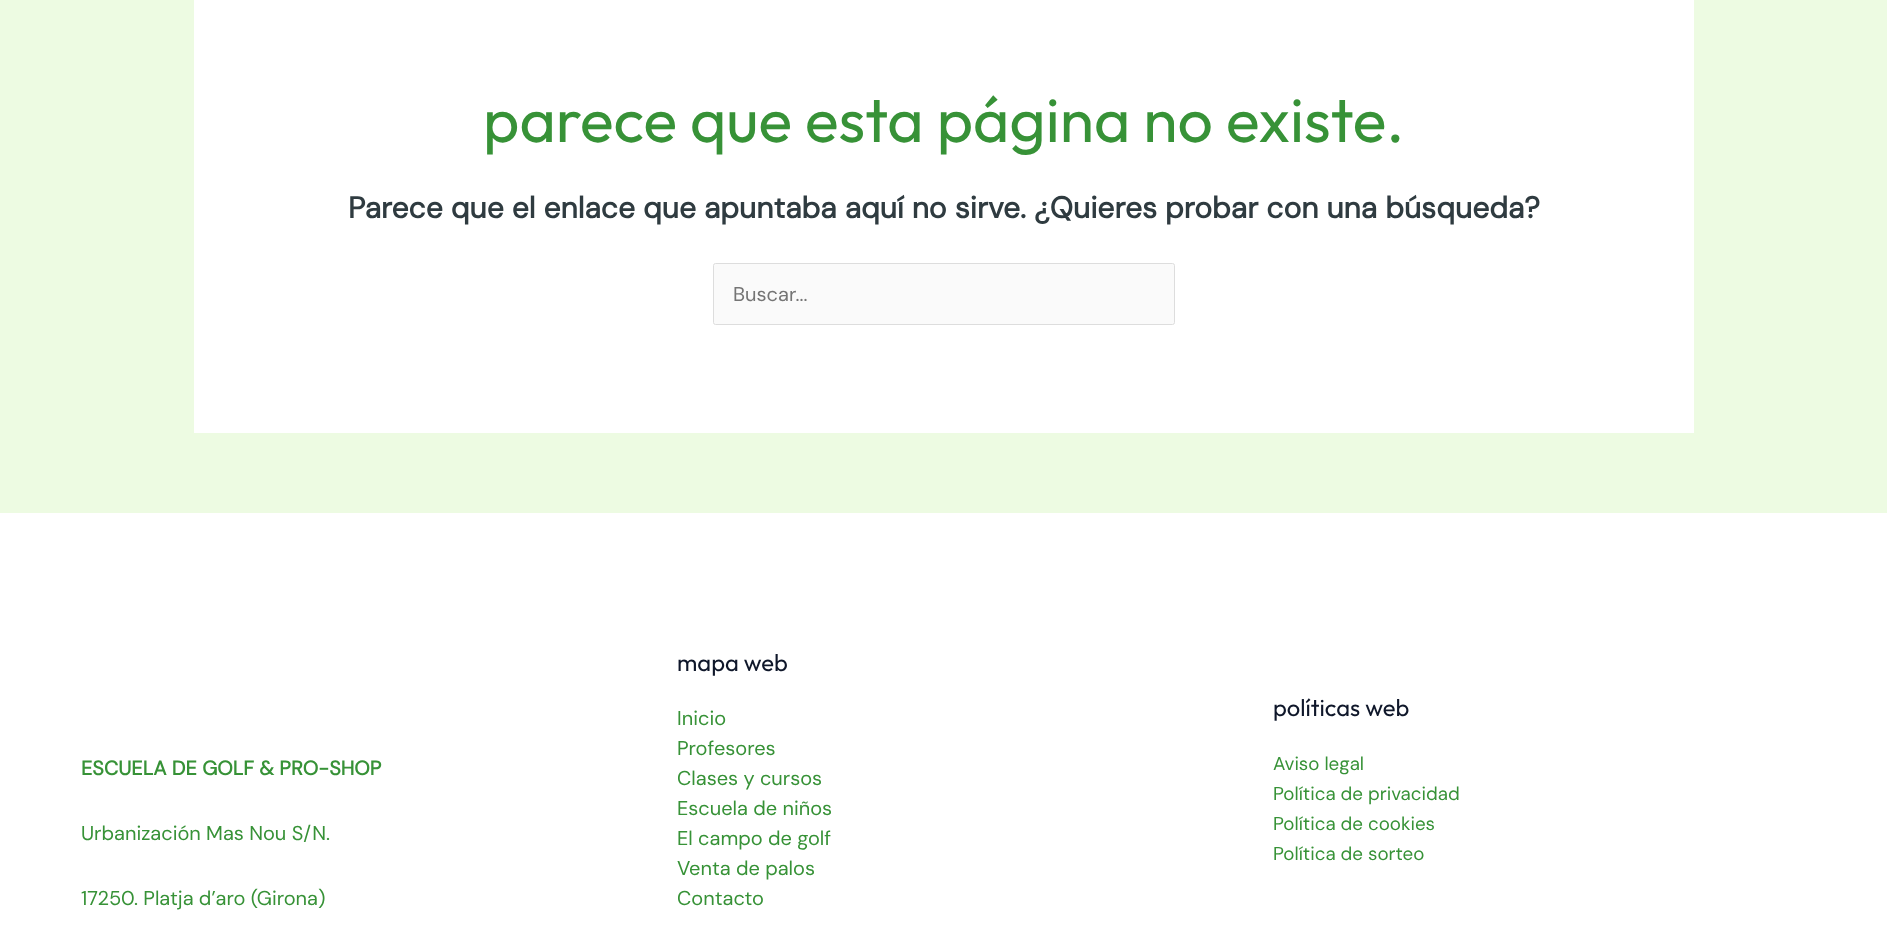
<!DOCTYPE html>
<meta charset="utf-8">
<style>body { margin: 0 } canvas { display: block }</style>
<canvas id="canvas" width="1887" height="934"></canvas>
<script type="module">
  const canvas = document.getElementById("canvas");
  const g = canvas.getContext("2d");
  g.miterLimit = 4;
  g.fontKerning = "normal";
  function drawText(s, x, y, [font, color]) {
    g.font = font;
    g.fillStyle = color;
    g.fillText(s, x, y);
  }
  function fillBox(x, y, w, h, color) {
    g.fillStyle = color;
    g.fillRect(x, y, w, h);
  }

  const s1 = ["62.5px Outfit", "#379237"];
  const s2 = ["bold 30px DM Sans", "#2F3B40"];
  const s3 = ["20px DM Sans", "#757575"];
  const s4 = ["bold 20px DM Sans", "#379237"];
  const s5 = ["20px DM Sans", "#379237"];
  const s6 = ["23.75px Outfit", "#0F172A"];
  const s7 = ["18.75px DM Sans", "#379237"];

  fillBox(0, 0, 1887, 934, "#EDFBE2");
  fillBox(194, 0, 1500, 433, "#FFFFFF");
  drawText("parece que esta página no existe.", 483, 142, s1);
  drawText("Parece que el enlace que apuntaba aquí no sirve. ¿Quieres probar con una búsqueda?", 348, 218, s2);
  g.fillStyle = "#FAFAFA";
  g.beginPath();
  g.roundRect(713.5, 263.5, 461, 61, 2);
  g.fill();
  g.strokeStyle = "#DDDDDD";
  g.stroke();
  drawText("Buscar...", 733, 301, s3);
  fillBox(0, 513, 1887, 421, "#FFFFFF");
  drawText("ESCUELA DE GOLF & PRO-SHOP", 81, 775, s4);
  drawText("Urbanización Mas Nou S/N.", 81, 840, s5);
  drawText("17250. Platja d’aro (Girona)", 81, 905, s5);
  drawText("mapa web", 677, 671, s6);
  drawText("Inicio", 677, 725, s5);
  drawText("Profesores", 677, 755, s5);
  drawText("Clases y cursos", 677, 785, s5);
  drawText("Escuela de niños", 677, 815, s5);
  drawText("El campo de golf", 677, 845, s5);
  drawText("Venta de palos", 677, 875, s5);
  drawText("Contacto", 677, 905, s5);
  drawText("políticas web", 1273, 716, s6);
  drawText("Aviso legal", 1273, 770, s7);
  drawText("Política de privacidad", 1273, 800, s7);
  drawText("Política de cookies", 1273, 830, s7);
  drawText("Política de sorteo", 1273, 860, s7);
</script>
